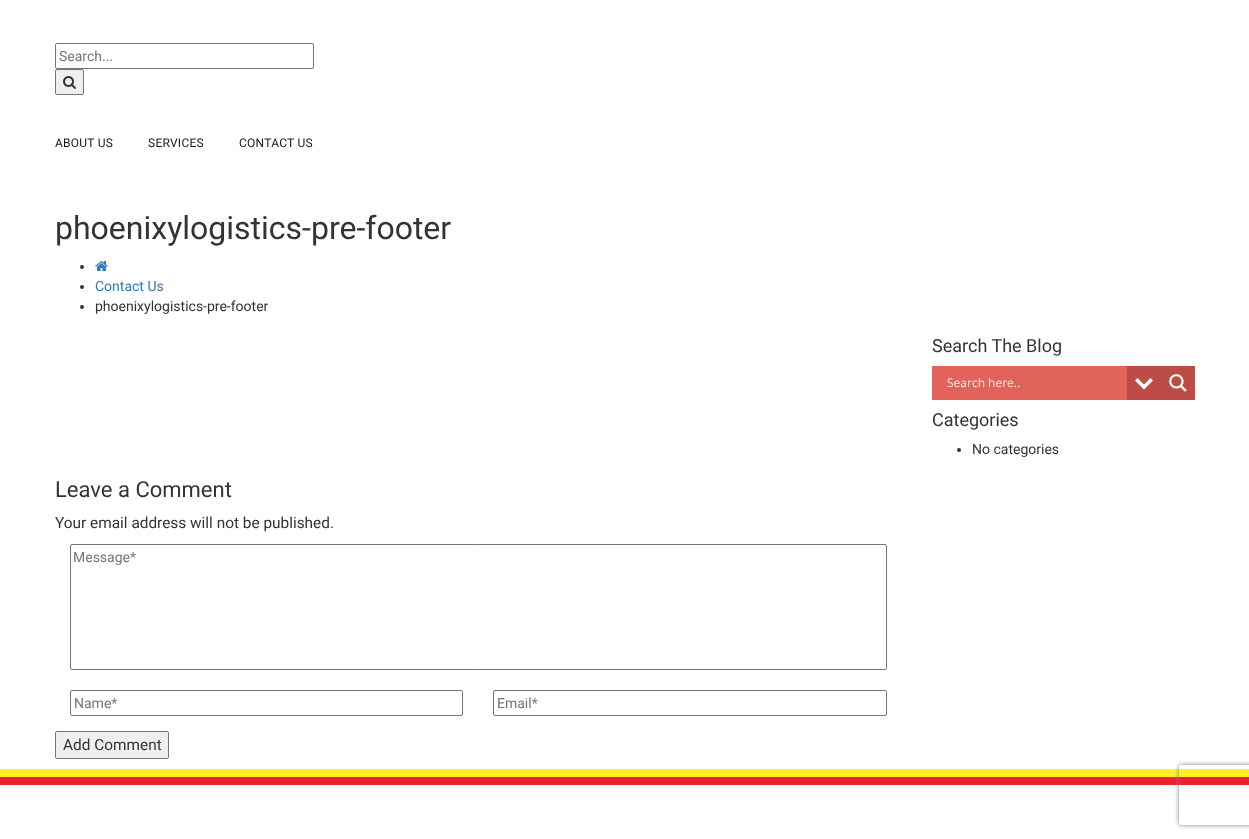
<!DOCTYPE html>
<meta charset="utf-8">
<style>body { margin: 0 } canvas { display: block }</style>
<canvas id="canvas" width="1249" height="839"></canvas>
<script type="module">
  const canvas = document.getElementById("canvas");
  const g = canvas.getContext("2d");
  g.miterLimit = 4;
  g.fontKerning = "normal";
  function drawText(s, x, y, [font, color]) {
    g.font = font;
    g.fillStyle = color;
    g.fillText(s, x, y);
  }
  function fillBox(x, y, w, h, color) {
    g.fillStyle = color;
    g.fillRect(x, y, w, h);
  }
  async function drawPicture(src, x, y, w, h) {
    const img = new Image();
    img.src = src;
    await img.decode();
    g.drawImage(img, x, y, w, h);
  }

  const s1 = ["14px Roboto", "#757575"];
  const s2 = ["12px Roboto", "#191919"];
  const s3 = ["32px Roboto", "#333333"];
  const s4 = ["14px Roboto", "#337AB7"];
  const s5 = ["14px Roboto", "#333333"];
  const s6 = ["18px Roboto", "#333333"];
  const s7 = ["12px Open Sans", "#FBE8E7"];
  const s8 = ["22px Roboto", "#333333"];
  const s9 = ["15.4px Roboto", "#333333"];

  fillBox(0, 0, 1249, 839, "#FFFFFF");
  g.beginPath();
  g.roundRect(55.5, 43.5, 258, 25, 1.5);
  g.strokeStyle = "#767676";
  g.stroke();
  drawText("Search...", 59, 61, s1);
  g.fillStyle = "#EFEFEF";
  g.beginPath();
  g.roundRect(55.5, 69.5, 28, 25, 1.5);
  g.fill();
  g.stroke();
  await drawPicture("pic1.png", 63, 76, 13, 13);
  g.letterSpacing = "0.25px";
  drawText("ABOUT US", 55, 147, s2);
  drawText("SERVICES", 148, 147, s2);
  drawText("CONTACT US", 239, 147, s2);
  fillBox(0, 769, 1249, 8, "#FFF02A");
  g.letterSpacing = "0px";
  drawText("phoenixylogistics-pre-footer", 55, 239, s3);
  g.beginPath();
  g.arc(82, 267, 2, 0, Math.PI * 2);
  g.fill();
  await drawPicture("pic2.png", 95, 261, 13, 10);
  g.beginPath();
  g.arc(82, 287, 2, 0, Math.PI * 2);
  g.fill();
  drawText("Contact Us", 95, 291, s4);
  g.fillStyle = "#333333";
  g.beginPath();
  g.arc(82, 307, 2, 0, Math.PI * 2);
  g.fill();
  drawText("phoenixylogistics-pre-footer", 95, 311, s5);
  drawText("Search The Blog", 932, 352, s6);
  fillBox(932, 366, 195, 34, "#E1635C");
  fillBox(1127, 366, 68, 34, "#BE4C46");
  g.fillStyle = "#FFFFFF";
  g.beginPath();
  g.moveTo(1150.5, 378);
  g.lineTo(1153, 380.5);
  g.lineTo(1144, 389.5);
  g.lineTo(1135, 380.5);
  g.lineTo(1137.5, 378);
  g.lineTo(1144, 384.5);
  g.closePath();
  g.fill();
  drawText("Search here..", 947, 387, s7);
  await drawPicture("pic3.png", 1169, 374, 18, 18);
  drawText("Categories", 932, 426, s6);
  g.beginPath();
  g.arc(959, 450, 2, 0, Math.PI * 2);
  g.fill();
  drawText("No categories", 972, 454, s5);
  drawText("Leave a Comment", 55, 497, s8);
  drawText("Your email address will not be published.", 55, 528, s9);
  g.beginPath();
  g.roundRect(70.5, 544.5, 816, 125, 1.5);
  g.stroke();
  drawText("Message*", 73, 562, s1);
  g.beginPath();
  g.roundRect(70.5, 690.5, 392, 25, 1.5);
  g.stroke();
  drawText("Name*", 74, 708, s1);
  g.beginPath();
  g.roundRect(493.5, 690.5, 393, 25, 1.5);
  g.stroke();
  drawText("Email*", 497, 708, s1);
  g.fillStyle = "#EFEFEF";
  g.beginPath();
  g.roundRect(55.5, 731.5, 113, 27, 1.5);
  g.fill();
  g.stroke();
  drawText("Add Comment", 63, 750, s9);
  fillBox(0, 777, 1249, 8, "#EB212E");
  g.save();
  g.beginPath();
  g.moveTo(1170, 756);
  g.lineTo(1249, 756);
  g.lineTo(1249, 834);
  g.lineTo(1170, 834);
  g.closePath();
  g.moveTo(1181, 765);
  g.lineTo(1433, 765);
  g.bezierCurveTo(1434, 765, 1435, 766, 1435, 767);
  g.lineTo(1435, 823);
  g.bezierCurveTo(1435, 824, 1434, 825, 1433, 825);
  g.lineTo(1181, 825);
  g.bezierCurveTo(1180, 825, 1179, 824, 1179, 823);
  g.lineTo(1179, 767);
  g.bezierCurveTo(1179, 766, 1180, 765, 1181, 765);
  g.closePath();
  g.clip("evenodd");
  g.fillStyle = "#808080";
  g.filter = "blur(2.5px)";
  g.beginPath();
  g.roundRect(1179, 765, 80, 60, 2);
  g.fill();
  g.filter = "none";
  g.restore();
</script>
